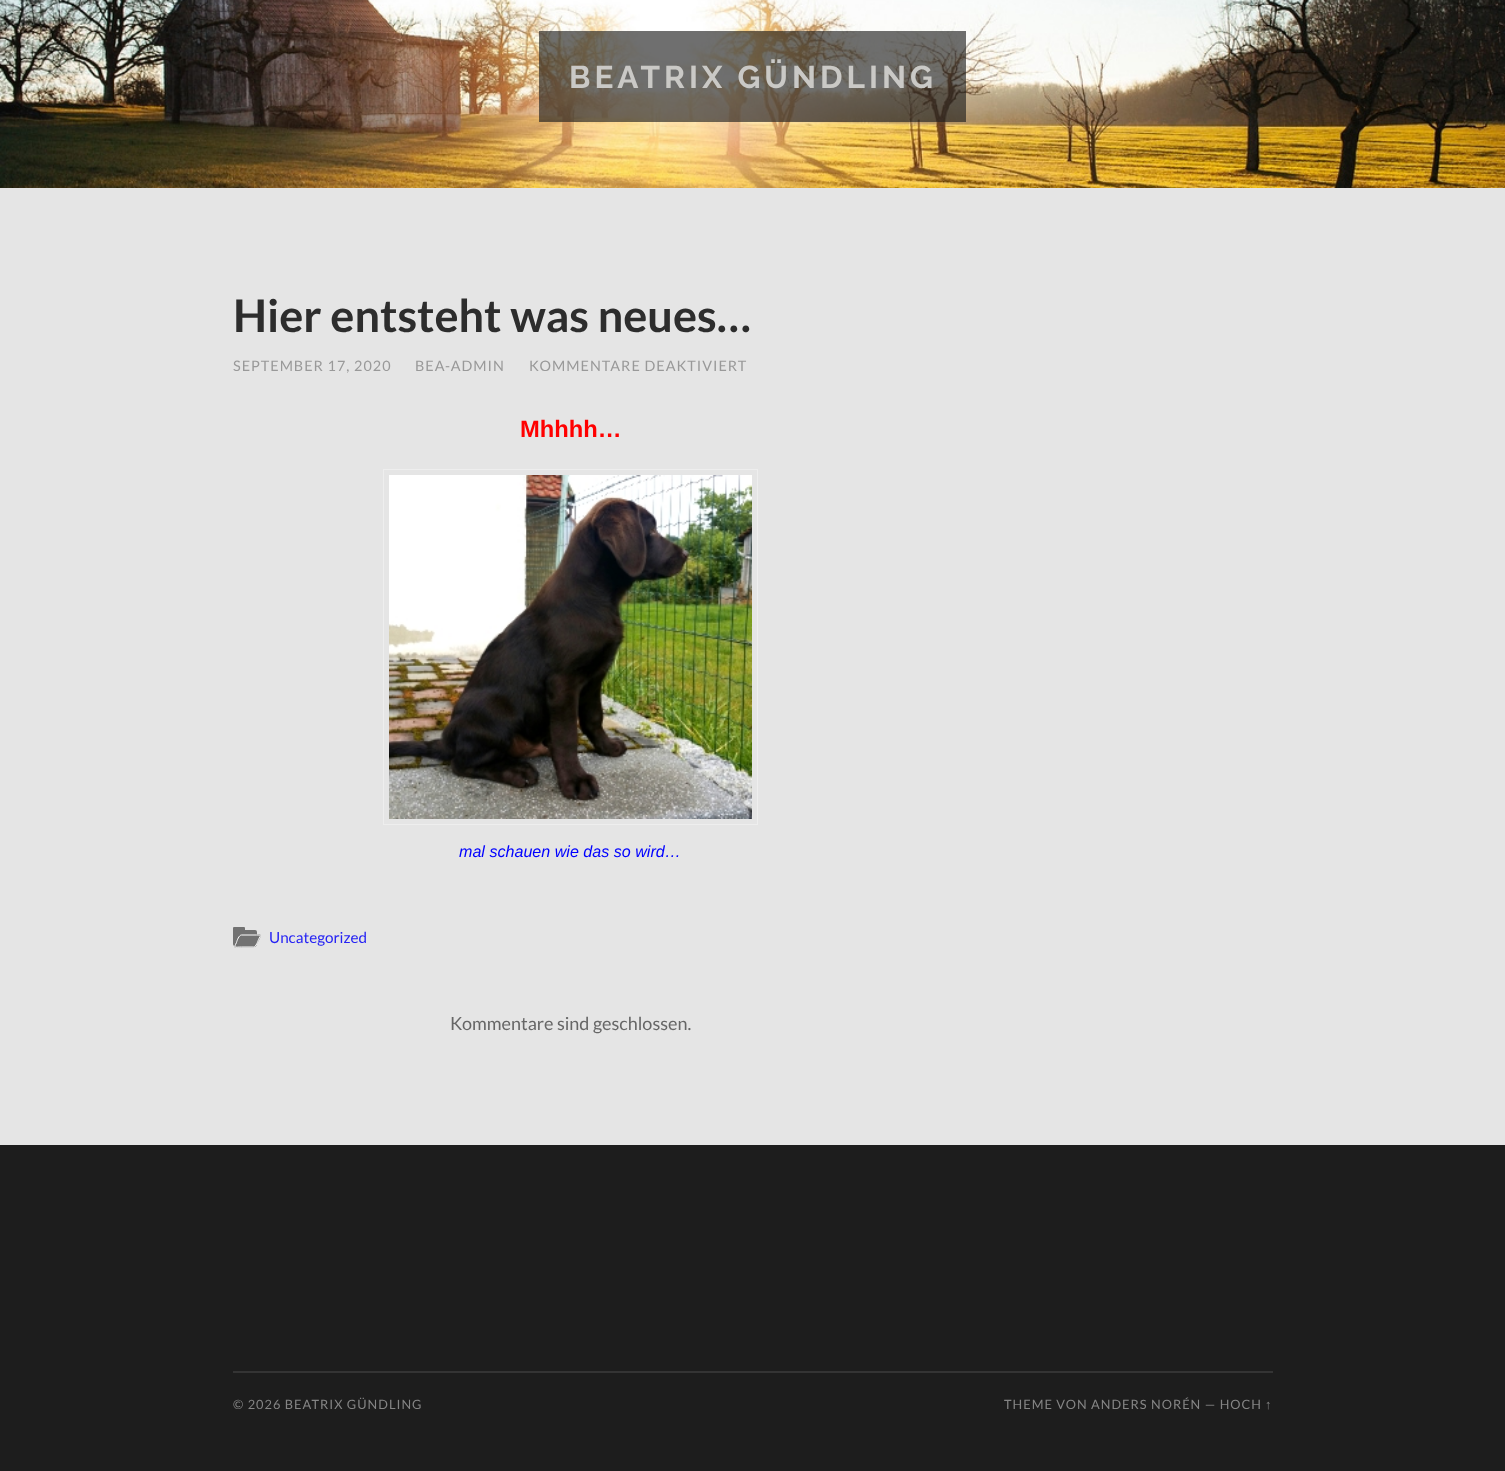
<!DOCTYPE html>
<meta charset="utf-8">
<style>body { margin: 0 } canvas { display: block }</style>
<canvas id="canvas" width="1505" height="1471"></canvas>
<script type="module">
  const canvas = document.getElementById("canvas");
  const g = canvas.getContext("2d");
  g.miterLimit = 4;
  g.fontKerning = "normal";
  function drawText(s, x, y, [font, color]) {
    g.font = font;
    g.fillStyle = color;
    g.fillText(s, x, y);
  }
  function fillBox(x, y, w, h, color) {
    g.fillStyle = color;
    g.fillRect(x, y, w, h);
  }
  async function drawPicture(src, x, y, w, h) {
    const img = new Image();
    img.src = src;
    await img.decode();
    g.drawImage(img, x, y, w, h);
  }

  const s1 = ["bold 31.5px Raleway", "#CAC9C6"];
  const s2 = ["bold 45px Lato", "#2D2D2D"];
  const s3 = ["14.4px Lato", "#999999"];
  const s4 = ["bold 23.75px Liberation Sans", "#FF0000"];
  const s5 = ["italic 16.1px Liberation Sans", "#0000FF"];
  const s6 = ["15.25px Lato", "#2522F4"];
  const s7 = ["18px Lato", "#666666"];
  const s8 = ["12.8px Lato", "#858585"];
  const s9 = ["12.8px Liberation Sans", "#858585"];

  fillBox(0, 0, 1505, 1471, "#E5E5E5");
  await drawPicture("pic1.png", 0, 0, 1505, 188);
  fillBox(539, 31, 427, 91, "rgba(29, 29, 29, 0.64)");
  g.letterSpacing = "4px";
  drawText("BEATRIX GÜNDLING", 569, 88, s1);
  g.letterSpacing = "0px";
  drawText("Hier entsteht was neues…", 233, 332, s2);
  g.letterSpacing = "1px";
  drawText("SEPTEMBER 17, 2020", 233, 371, s3);
  drawText("BEA-ADMIN", 415, 371, s3);
  drawText("KOMMENTARE DEAKTIVIERT", 529, 371, s3);
  g.letterSpacing = "0px";
  drawText("Mhhhh…", 520, 437, s4);
  g.strokeStyle = "#EEEEEE";
  g.strokeRect(383.5, 469.5, 374, 355);
  await drawPicture("pic2.png", 389, 475, 363, 344);
  drawText("mal schauen wie das so wird…", 459, 857, s5);
  g.fillStyle = "#727272";
  g.beginPath();
  g.roundRect(233, 930, 24, 16, [0, 2, 2, 2]);
  g.fill();
  g.beginPath();
  g.roundRect(233, 927, 12, 3, [1, 1, 0, 0]);
  g.fill();
  g.beginPath();
  g.moveTo(241.5, 934.5);
  g.lineTo(253.5, 934.5);
  g.bezierCurveTo(258, 934.5, 262.5, 932.5, 260, 938);
  g.lineTo(257, 944);
  g.bezierCurveTo(255.5, 947.5, 254.5, 947.5, 250.5, 947.5);
  g.lineTo(235.5, 947.5);
  g.bezierCurveTo(232.5, 947.5, 236, 942, 236.5, 941);
  g.bezierCurveTo(237.5, 939, 238.5, 934.5, 241.5, 934.5);
  g.closePath();
  g.fill();
  g.beginPath();
  g.moveTo(241.5, 935);
  g.lineTo(256.5, 935);
  g.bezierCurveTo(261.5, 935, 261, 935, 258.5, 939.5);
  g.bezierCurveTo(258, 941, 256, 947, 253.5, 947);
  g.lineTo(241.5, 947);
  g.bezierCurveTo(234.5, 947, 233.5, 948.5, 236.5, 942.5);
  g.bezierCurveTo(237, 940.5, 239, 935, 241.5, 935);
  g.closePath();
  g.strokeStyle = "#FFFFFF";
  g.stroke();
  drawText("Uncategorized", 269, 943, s6);
  drawText("Kommentare sind geschlossen.", 450, 1030, s7);
  fillBox(0, 1145, 1505, 326, "#1D1D1D");
  fillBox(233, 1371, 1040, 2, "#343434");
  g.letterSpacing = "1px";
  drawText("© 2026 BEATRIX GÜNDLING", 233, 1409, s8);
  drawText("THEME VON ANDERS NORÉN — HOCH", 1004, 1409, s8);
  drawText("↑", 1265, 1409, s9);
</script>
